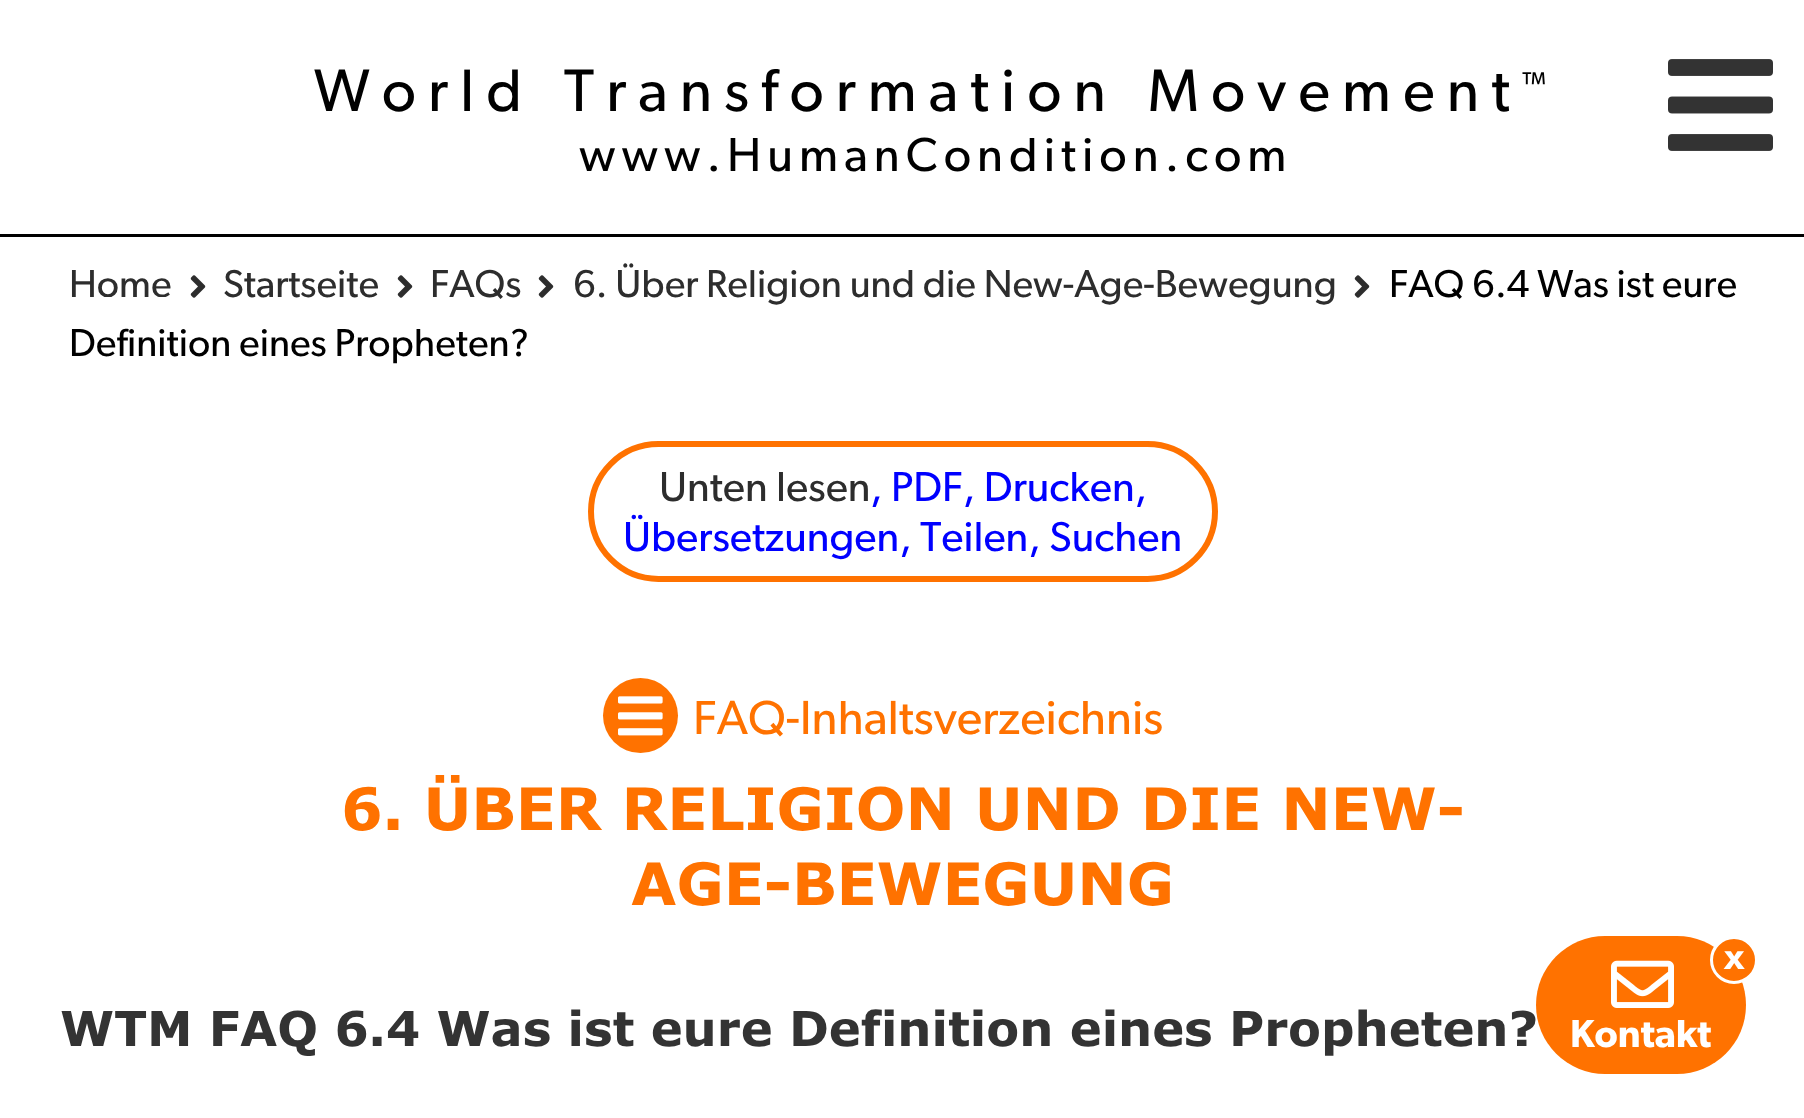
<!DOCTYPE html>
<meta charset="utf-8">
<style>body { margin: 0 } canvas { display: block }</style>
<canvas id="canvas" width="1804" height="1118"></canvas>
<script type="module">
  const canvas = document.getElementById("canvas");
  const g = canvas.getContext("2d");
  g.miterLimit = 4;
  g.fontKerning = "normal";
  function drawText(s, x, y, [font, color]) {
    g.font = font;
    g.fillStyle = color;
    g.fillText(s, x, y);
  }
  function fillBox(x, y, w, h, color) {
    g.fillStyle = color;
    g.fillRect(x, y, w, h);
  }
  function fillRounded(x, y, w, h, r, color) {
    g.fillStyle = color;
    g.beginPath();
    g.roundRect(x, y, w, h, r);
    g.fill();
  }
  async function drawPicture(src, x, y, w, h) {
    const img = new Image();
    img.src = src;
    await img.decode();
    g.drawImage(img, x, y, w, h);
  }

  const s1 = ["60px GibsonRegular", "#000000"];
  const s2 = ["30px GibsonRegular", "#000000"];
  const s3 = ["48px GibsonRegular", "#000000"];
  const s4 = ["39px GibsonRegular", "#2D2D2D"];
  const s5 = ["39px GibsonRegular", "#000000"];
  const s6 = ["42px GibsonRegular", "#2D2D2D"];
  const s7 = ["42px GibsonRegular", "#0000FF"];
  const s8 = ["48px GibsonRegular", "#FF7200"];
  const s9 = ["58.5px Verdana", "#FF7200"];
  const s10 = ["48px Verdana", "#333333"];
  const s11 = ["36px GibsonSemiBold", "#FFFFFF"];
  const s12 = ["39px GibsonSemiBold", "#FFFFFF"];

  fillBox(0, 0, 1804, 1118, "#FFFFFF");
  fillBox(0, 234, 1804, 3, "#000000");
  g.letterSpacing = "12px";
  g.wordSpacing = "6px";
  drawText("World Transformation Movement", 314, 111, s1);
  g.wordSpacing = "0px";
  drawText("™", 1521, 93, s2);
  g.letterSpacing = "6px";
  drawText("www.HumanCondition.com", 579, 171, s3);
  await drawPicture("pic1.png", 1668, 59, 105, 92);
  g.save();
  g.beginPath();
  g.rect(69, 258, 102, 39);
  g.clip();
  g.letterSpacing = "0px";
  drawText("Home", 69, 297, s4);
  g.restore();
  await drawPicture("pic2.png", 190, 275, 16, 23);
  g.letterSpacing = "0px";
  drawText("Startseite", 223, 297, s4);
  await drawPicture("pic2.png", 397, 275, 16, 23);
  drawText("FAQs", 430, 297, s4);
  await drawPicture("pic2.png", 538, 275, 16, 23);
  drawText("6. Über Religion und die New-Age-Bewegung", 573, 297, s4);
  await drawPicture("pic2.png", 1354, 275, 16, 23);
  drawText("FAQ 6.4 Was ist eure", 1389, 297, s5);
  drawText("Definition eines Propheten?", 69, 356, s5);
  g.beginPath();
  g.roundRect(591, 444, 624, 135, 67.5);
  g.strokeStyle = "#FF7200";
  g.lineWidth = 6;
  g.stroke();
  drawText("Unten lesen", 659, 501, s6);
  drawText(", PDF, Drucken,", 870, 501, s7);
  drawText("Übersetzungen, Teilen, Suchen", 623, 551, s7);
  g.fillStyle = "#FF7200";
  g.beginPath();
  g.arc(640.5, 715.5, 37.5, 0, Math.PI * 2);
  g.fill();
  await drawPicture("pic3.png", 618, 696, 45, 40);
  drawText("FAQ-Inhaltsverzeichnis", 693, 734, s8);
  drawText("6. ÜBER RELIGION UND DIE NEW-", 341, 830, s9);
  drawText("AGE-BEWEGUNG", 631, 905, s9);
  drawText("WTM FAQ 6.4 Was ist eure Definition eines Propheten?", 60, 1046, s10);
  fillRounded(1536, 936, 210, 138, 69, "#FF7200");
  g.beginPath();
  g.arc(1734, 960, 22.5, 0, Math.PI * 2);
  g.fill();
  g.strokeStyle = "#FFFFFF";
  g.lineWidth = 3;
  g.stroke();
  drawText("x", 1724, 969, s11);
  await drawPicture("pic4.png", 1611, 960, 63, 48);
  drawText("Kontakt", 1570, 1047, s12);
</script>
